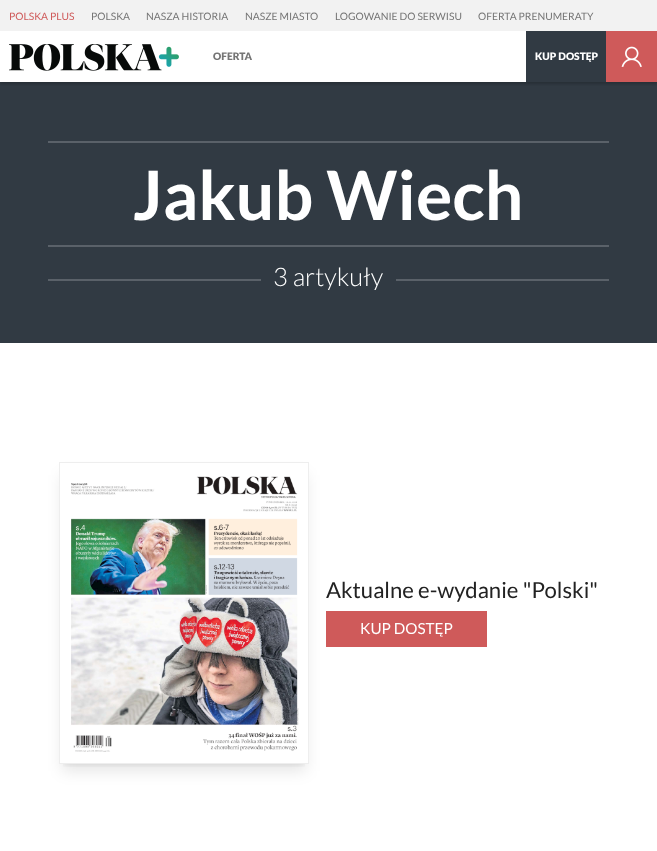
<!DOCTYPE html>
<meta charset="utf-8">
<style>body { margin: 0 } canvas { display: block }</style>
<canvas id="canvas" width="657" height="851"></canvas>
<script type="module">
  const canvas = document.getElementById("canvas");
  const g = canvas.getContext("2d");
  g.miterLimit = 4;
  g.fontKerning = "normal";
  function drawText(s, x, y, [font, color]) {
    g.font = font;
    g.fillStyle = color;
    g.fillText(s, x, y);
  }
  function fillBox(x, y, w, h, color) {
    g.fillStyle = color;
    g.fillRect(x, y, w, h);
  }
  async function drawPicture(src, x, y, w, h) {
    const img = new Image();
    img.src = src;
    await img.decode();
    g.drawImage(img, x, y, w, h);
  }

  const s1 = ["10.25px Lato", "#CF5A5A"];
  const s2 = ["10.25px Lato", "#757575"];
  const s3 = ["900 10.25px Lato", "#757575"];
  const s4 = ["900 10.25px Lato", "#FFFFFF"];
  const s5 = ["bold 68px Lato", "#FFFFFF"];
  const s6 = ["300 25.5px Lato", "#FFFFFF"];
  const s7 = ["22.1px Lato", "#222222"];
  const s8 = ["15.25px Lato", "#FFFFFF"];

  fillBox(0, 0, 657, 851, "#FFFFFF");
  fillBox(0, 0, 657, 31, "#F2F2F2");
  drawText("POLSKA PLUS", 9, 20, s1);
  drawText("POLSKA", 91, 20, s2);
  drawText("NASZA HISTORIA", 146, 20, s2);
  drawText("NASZE MIASTO", 245, 20, s2);
  drawText("LOGOWANIE DO SERWISU", 335, 20, s2);
  drawText("OFERTA PRENUMERATY", 478, 20, s2);
  fillBox(0, 82, 657, 261, "#313A43");
  g.save();
  g.beginPath();
  g.rect(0, 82, 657, 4);
  g.clip();
  g.fillStyle = "rgba(0, 0, 0, 0.2)";
  g.filter = "blur(1.5px)";
  g.beginPath();
  g.rect(0, 33, 657, 51);
  g.fill();
  g.filter = "none";
  g.restore();
  await drawPicture("pic1.png", 9, 44, 170, 27);
  drawText("OFERTA", 213, 60, s3);
  fillBox(526, 31, 80, 51, "#313A43");
  drawText("KUP DOSTĘP", 535, 60, s4);
  fillBox(606, 31, 51, 51, "#CF5A5A");
  await drawPicture("pic2.png", 621, 46, 21, 21);
  fillBox(48, 141, 561, 2, "#5A6169");
  fillBox(48, 245, 561, 2, "#5A6169");
  drawText("Jakub Wiech", 133, 220, s5);
  fillBox(48, 279, 213, 2, "#5A6169");
  g.save();
  g.beginPath();
  g.rect(48, 247, 561, 43);
  g.clip();
  drawText("3 artykuły", 273, 286, s6);
  g.restore();
  fillBox(396, 279, 213, 2, "#5A6169");
  g.save();
  g.beginPath();
  g.rect(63, 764, 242, 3);
  g.clip();
  g.fillStyle = "rgba(0, 0, 0, 0.1)";
  g.filter = "blur(3px)";
  g.beginPath();
  g.rect(63, 470, 242, 294);
  g.fill();
  g.filter = "none";
  g.restore();
  g.save();
  g.beginPath();
  g.moveTo(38, 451);
  g.lineTo(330, 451);
  g.lineTo(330, 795);
  g.lineTo(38, 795);
  g.closePath();
  g.moveTo(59, 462);
  g.lineTo(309, 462);
  g.lineTo(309, 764);
  g.lineTo(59, 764);
  g.closePath();
  g.clip("evenodd");
  g.fillStyle = "rgba(0, 0, 0, 0.1)";
  g.filter = "blur(7.5px)";
  g.beginPath();
  g.rect(62, 475, 244, 296);
  g.fill();
  g.filter = "none";
  g.restore();
  g.strokeStyle = "#EEEEEE";
  g.strokeRect(59.5, 462.5, 249, 301);
  await drawPicture("pic3.png", 71, 476, 228, 276);
  drawText("Aktualne e-wydanie \"Polski\"", 326, 598, s7);
  fillBox(326, 611, 161, 36, "#CF5A5A");
  drawText("KUP DOSTĘP", 360, 634, s8);
</script>
